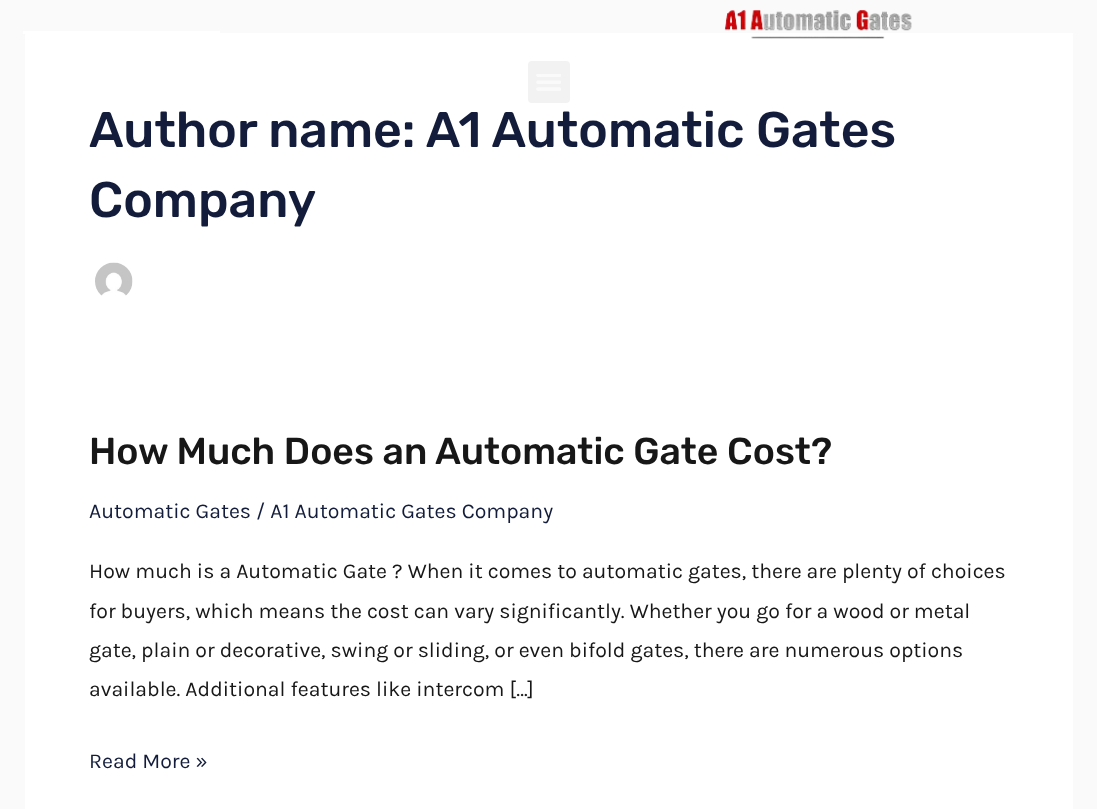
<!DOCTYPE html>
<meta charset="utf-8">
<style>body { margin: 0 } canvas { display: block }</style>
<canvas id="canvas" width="1097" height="809"></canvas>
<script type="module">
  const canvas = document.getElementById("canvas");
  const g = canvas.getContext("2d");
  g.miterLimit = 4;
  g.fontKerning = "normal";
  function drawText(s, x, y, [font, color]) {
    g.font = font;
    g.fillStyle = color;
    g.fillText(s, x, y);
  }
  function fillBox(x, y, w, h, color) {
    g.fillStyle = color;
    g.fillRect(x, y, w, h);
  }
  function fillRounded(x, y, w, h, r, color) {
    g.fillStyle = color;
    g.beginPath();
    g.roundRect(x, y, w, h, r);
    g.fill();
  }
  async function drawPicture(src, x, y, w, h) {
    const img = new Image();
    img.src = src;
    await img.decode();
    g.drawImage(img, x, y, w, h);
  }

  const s1 = ["500 50px Rubik", "#131D3B"];
  const s2 = ["500 37.5px Rubik", "#171717"];
  const s3 = ["21.25px Karla", "#131D3B"];
  const s4 = ["21.25px Karla", "#171717"];

  fillBox(0, 0, 1097, 809, "#FAFAFA");
  fillBox(25, 33, 1048, 776, "#FFFFFF");
  fillBox(23, 31, 197, 3, "#FFFFFF");
  await drawPicture("pic1.png", 724, 10, 188, 29);
  fillRounded(528, 61, 42, 42, 4, "#F2F2F2");
  await drawPicture("pic2.png", 536, 74, 25, 17);
  drawText("Author name: A1 Automatic Gates", 89, 147, s1);
  drawText("Company", 89, 217, s1);
  await drawPicture("pic3.png", 95, 262, 38, 34);
  drawText("How Much Does an Automatic Gate Cost?", 89, 464, s2);
  drawText("Automatic Gates / A1 Automatic Gates Company", 89, 518, s3);
  drawText("How much is a Automatic Gate ? When it comes to automatic gates, there are plenty of choices", 89, 578, s4);
  drawText("for buyers, which means the cost can vary significantly. Whether you go for a wood or metal", 89, 618, s4);
  drawText("gate, plain or decorative, swing or sliding, or even bifold gates, there are numerous options", 89, 657, s4);
  drawText("available. Additional features like intercom […]", 89, 696, s4);
  drawText("Read More »", 89, 768, s3);
</script>
